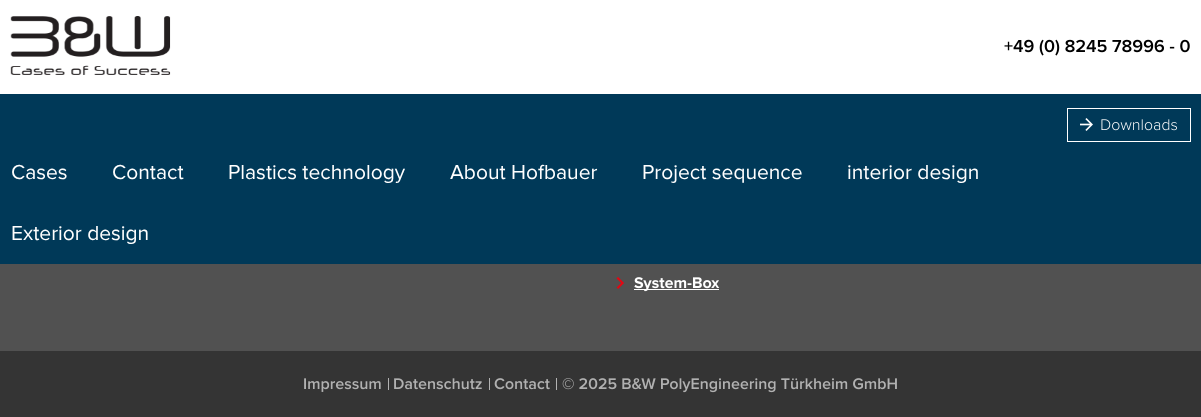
<!DOCTYPE html>
<meta charset="utf-8">
<style>body { margin: 0 } canvas { display: block }</style>
<canvas id="canvas" width="1201" height="417"></canvas>
<script type="module">
  const canvas = document.getElementById("canvas");
  const g = canvas.getContext("2d");
  g.miterLimit = 4;
  g.fontKerning = "normal";
  function drawText(s, x, y, [font, color]) {
    g.font = font;
    g.fillStyle = color;
    g.fillText(s, x, y);
  }
  function fillBox(x, y, w, h, color) {
    g.fillStyle = color;
    g.fillRect(x, y, w, h);
  }
  async function drawPicture(src, x, y, w, h) {
    const img = new Image();
    img.src = src;
    await img.decode();
    g.drawImage(img, x, y, w, h);
  }

  const s1 = ["21px Proxima Nova", "#FFFFFF"];

  fillBox(0, 0, 1201, 417, "#515151");
  fillBox(0, 0, 1201, 94, "#FFFFFF");
  await drawPicture("pic1.png", 10, 16, 161, 59);
  await drawPicture("pic2.png", 1004, 39, 186, 17);
  fillBox(0, 94, 1201, 170, "#003958");
  g.strokeStyle = "#FFFFFF";
  g.strokeRect(1067.5, 108.5, 123, 33);
  await drawPicture("pic3.png", 1080, 118, 13, 13);
  await drawPicture("pic4.png", 1101, 119, 76, 12);
  drawText("Cases", 11, 179, s1);
  drawText("Contact", 112, 179, s1);
  drawText("Plastics technology", 228, 179, s1);
  drawText("About Hofbauer", 450, 179, s1);
  drawText("Project sequence", 642, 179, s1);
  drawText("interior design", 847, 179, s1);
  drawText("Exterior design", 11, 240, s1);
  await drawPicture("pic5.png", 616, 277, 8, 12);
  fillBox(634, 289, 85, 1, "#FFFFFF");
  await drawPicture("pic6.png", 634, 277, 86, 15);
  fillBox(0, 351, 1201, 66, "#343434");
  await drawPicture("pic7.png", 304, 378, 77, 14);
  fillBox(388, 378, 1, 12, "#B2B2B2");
  await drawPicture("pic8.png", 394, 378, 88, 12);
  fillBox(489, 378, 1, 12, "#B2B2B2");
  await drawPicture("pic9.png", 494, 378, 56, 12);
  fillBox(556, 378, 1, 12, "#B2B2B2");
  await drawPicture("pic10.png", 562, 378, 335, 15);
</script>
